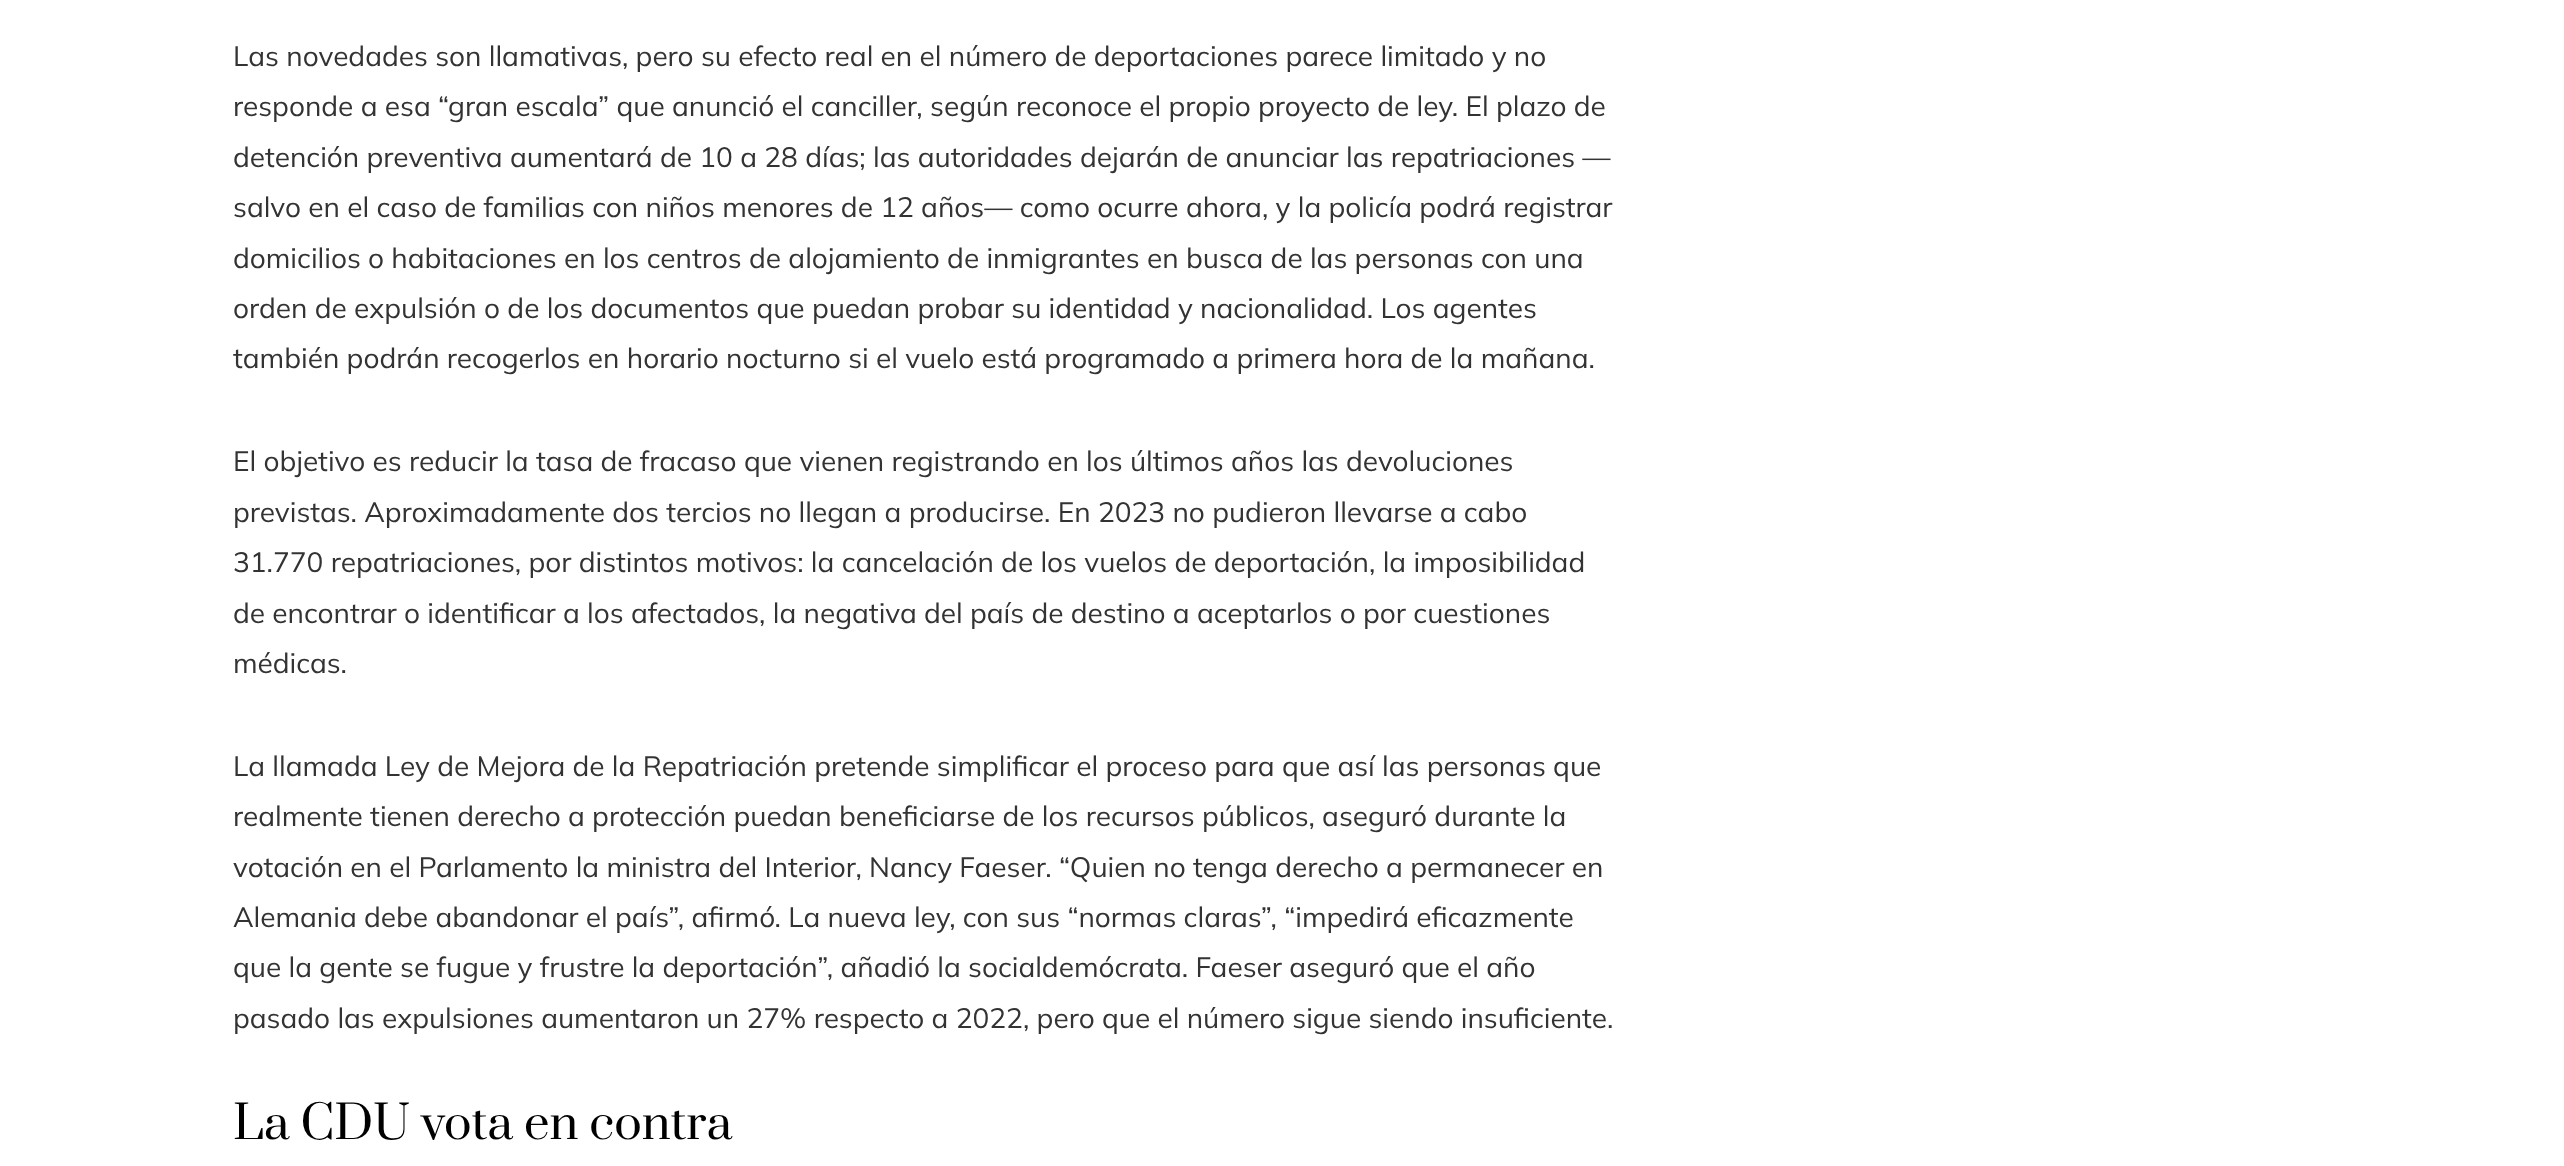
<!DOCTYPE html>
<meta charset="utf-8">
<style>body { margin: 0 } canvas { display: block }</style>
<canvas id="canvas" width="2564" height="1166"></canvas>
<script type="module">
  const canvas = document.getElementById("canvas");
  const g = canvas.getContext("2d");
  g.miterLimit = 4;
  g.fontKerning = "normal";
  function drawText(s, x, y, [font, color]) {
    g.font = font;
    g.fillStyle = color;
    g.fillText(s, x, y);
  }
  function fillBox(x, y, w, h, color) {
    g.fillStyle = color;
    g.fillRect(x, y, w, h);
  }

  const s1 = ["28px Mulish", "#333333"];
  const s2 = ["45.5px Prata", "#000000"];

  fillBox(0, 0, 2564, 1166, "#FFFFFF");
  drawText("Las novedades son llamativas, pero su efecto real en el número de deportaciones parece limitado y no", 233, 66, s1);
  drawText("responde a esa “gran escala” que anunció el canciller, según reconoce el propio proyecto de ley. El plazo de", 233, 116, s1);
  drawText("detención preventiva aumentará de 10 a 28 días; las autoridades dejarán de anunciar las repatriaciones —", 233, 167, s1);
  drawText("salvo en el caso de familias con niños menores de 12 años— como ocurre ahora, y la policía podrá registrar", 233, 217, s1);
  drawText("domicilios o habitaciones en los centros de alojamiento de inmigrantes en busca de las personas con una", 233, 268, s1);
  drawText("orden de expulsión o de los documentos que puedan probar su identidad y nacionalidad. Los agentes", 233, 318, s1);
  drawText("también podrán recogerlos en horario nocturno si el vuelo está programado a primera hora de la mañana.", 233, 368, s1);
  drawText("El objetivo es reducir la tasa de fracaso que vienen registrando en los últimos años las devoluciones", 233, 471, s1);
  drawText("previstas. Aproximadamente dos tercios no llegan a producirse. En 2023 no pudieron llevarse a cabo", 233, 522, s1);
  drawText("31.770 repatriaciones, por distintos motivos: la cancelación de los vuelos de deportación, la imposibilidad", 233, 572, s1);
  drawText("de encontrar o identificar a los afectados, la negativa del país de destino a aceptarlos o por cuestiones", 233, 623, s1);
  drawText("médicas.", 233, 673, s1);
  drawText("La llamada Ley de Mejora de la Repatriación pretende simplificar el proceso para que así las personas que", 233, 776, s1);
  drawText("realmente tienen derecho a protección puedan beneficiarse de los recursos públicos, aseguró durante la", 233, 826, s1);
  drawText("votación en el Parlamento la ministra del Interior, Nancy Faeser. “Quien no tenga derecho a permanecer en", 233, 877, s1);
  drawText("Alemania debe abandonar el país”, afirmó. La nueva ley, con sus “normas claras”, “impedirá eficazmente", 233, 927, s1);
  drawText("que la gente se fugue y frustre la deportación”, añadió la socialdemócrata. Faeser aseguró que el año", 233, 977, s1);
  drawText("pasado las expulsiones aumentaron un 27% respecto a 2022, pero que el número sigue siendo insuficiente.", 233, 1028, s1);
  drawText("La CDU vota en contra", 233, 1139, s2);
</script>
